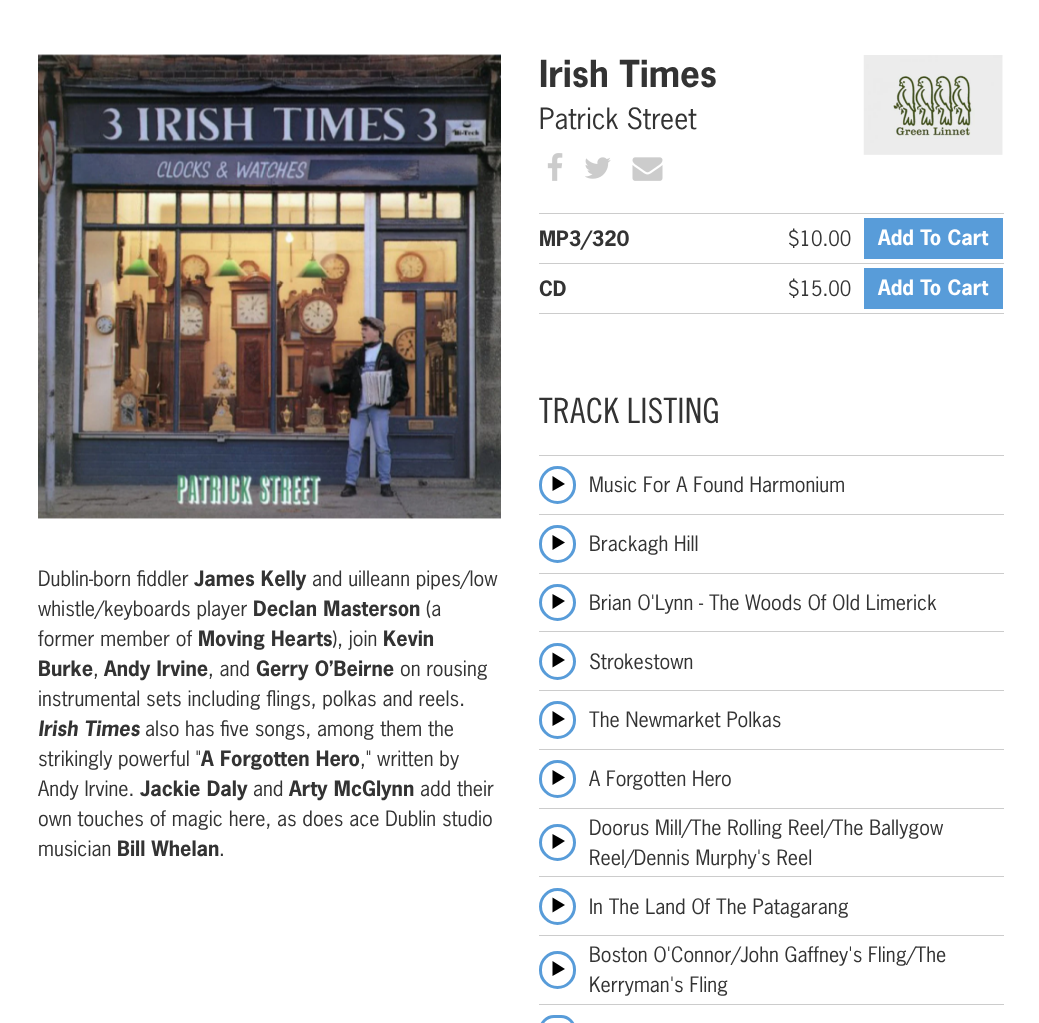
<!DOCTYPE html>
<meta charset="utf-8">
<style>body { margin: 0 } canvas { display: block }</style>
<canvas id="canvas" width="1039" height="1023"></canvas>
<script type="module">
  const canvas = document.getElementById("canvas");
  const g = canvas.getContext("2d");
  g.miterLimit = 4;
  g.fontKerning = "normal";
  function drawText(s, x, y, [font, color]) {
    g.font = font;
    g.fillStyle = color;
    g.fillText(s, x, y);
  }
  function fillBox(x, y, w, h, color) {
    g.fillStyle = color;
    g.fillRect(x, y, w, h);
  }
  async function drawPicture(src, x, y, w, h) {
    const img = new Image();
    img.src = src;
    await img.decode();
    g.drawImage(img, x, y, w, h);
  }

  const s1 = ["20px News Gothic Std", "#333333"];
  const s2 = ["bold 20px News Gothic Std", "#333333"];
  const s3 = ["italic bold 20px News Gothic Std", "#333333"];
  const s4 = ["bold 35px News Gothic Std", "#333333"];
  const s5 = ["27.5px News Gothic Std", "#333333"];
  const s6 = ["bold 20px News Gothic Std", "#FFFFFF"];
  const s7 = ["35px 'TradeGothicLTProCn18'", "#333333"];

  fillBox(0, 0, 1039, 1023, "#FFFFFF");
  await drawPicture("pic1.png", 38, 54, 463, 465);
  drawText("Dublin-born fiddler", 38, 586, s1);
  drawText("James Kelly", 194, 586, s2);
  drawText("and uilleann pipes/low", 312, 586, s1);
  drawText("whistle/keyboards player", 38, 616, s1);
  drawText("Declan Masterson", 253, 616, s2);
  drawText("(a", 426, 616, s1);
  drawText("former member of", 38, 646, s1);
  drawText("Moving Hearts", 198, 646, s2);
  drawText("), join", 332, 646, s1);
  drawText("Kevin", 383, 646, s2);
  drawText("Burke", 38, 676, s2);
  drawText(",", 93, 676, s1);
  drawText("Andy Irvine", 104, 676, s2);
  drawText(", and", 208, 676, s1);
  drawText("Gerry O’Beirne", 256, 676, s2);
  drawText("on rousing", 400, 676, s1);
  drawText("instrumental sets including flings, polkas and reels.", 38, 706, s1);
  drawText("Irish Times", 38, 736, s3);
  drawText("also has five songs, among them the", 145, 736, s1);
  drawText("strikingly powerful \"", 38, 766, s1);
  drawText("A Forgotten Hero", 201, 766, s2);
  drawText(",\" written by", 360, 766, s1);
  drawText("Andy Irvine.", 38, 796, s1);
  drawText("Jackie Daly", 140, 796, s2);
  drawText("and", 253, 796, s1);
  drawText("Arty McGlynn", 289, 796, s2);
  drawText("add their", 420, 796, s1);
  drawText("own touches of magic here, as does ace Dublin studio", 38, 826, s1);
  drawText("musician", 38, 856, s1);
  drawText("Bill Whelan", 117, 856, s2);
  drawText(".", 219, 856, s1);
  drawText("Irish Times", 539, 87, s4);
  drawText("Patrick Street", 539, 129, s5);
  await drawPicture("pic2.png", 547, 153, 16, 28);
  await drawPicture("pic3.png", 585, 157, 26, 22);
  await drawPicture("pic4.png", 632, 157, 31, 24);
  await drawPicture("pic5.png", 863, 55, 140, 100);
  fillBox(539, 213, 465, 1, "#CCCCCC");
  drawText("MP3/320", 539, 246, s2);
  drawText("$10.00", 788, 246, s1);
  fillBox(864, 218, 139, 41, "#589CD9");
  drawText("Add To Cart", 878, 245, s6);
  fillBox(539, 263, 465, 1, "#CCCCCC");
  fillBox(539, 313, 465, 1, "#CCCCCC");
  drawText("CD", 539, 296, s2);
  drawText("$15.00", 788, 296, s1);
  fillBox(864, 268, 139, 41, "#589CD9");
  drawText("Add To Cart", 878, 295, s6);
  drawText("TRACK LISTING", 539, 423, s7);
  fillBox(539, 455, 465, 1, "#CCCCCC");
  g.beginPath();
  g.roundRect(540.5, 467.5, 34, 35, 17);
  g.strokeStyle = "#589CD9";
  g.lineWidth = 3;
  g.stroke();
  g.fillStyle = "#000000";
  g.beginPath();
  g.moveTo(552.5, 491);
  g.lineTo(552.5, 476);
  g.lineTo(565, 484);
  g.closePath();
  g.fill();
  drawText("Music For A Found Harmonium", 589, 492, s1);
  fillBox(539, 514, 465, 1, "#CCCCCC");
  g.beginPath();
  g.roundRect(540.5, 526.5, 34, 35, 17);
  g.stroke();
  g.fillStyle = "#000000";
  g.beginPath();
  g.moveTo(552.5, 550);
  g.lineTo(552.5, 535);
  g.lineTo(565, 542.5);
  g.closePath();
  g.fill();
  drawText("Brackagh Hill", 589, 551, s1);
  fillBox(539, 573, 465, 1, "#CCCCCC");
  g.beginPath();
  g.arc(557.5, 602.5, 17, 0, Math.PI * 2);
  g.stroke();
  g.fillStyle = "#000000";
  g.beginPath();
  g.moveTo(552.5, 609);
  g.lineTo(552.5, 594);
  g.lineTo(565, 601);
  g.closePath();
  g.fill();
  drawText("Brian O'Lynn - The Woods Of Old Limerick", 589, 610, s1);
  fillBox(539, 631, 465, 1, "#CCCCCC");
  g.beginPath();
  g.arc(557.5, 661.5, 17, 0, Math.PI * 2);
  g.stroke();
  g.fillStyle = "#000000";
  g.beginPath();
  g.moveTo(552.5, 667.5);
  g.lineTo(552.5, 652.5);
  g.lineTo(565, 660);
  g.closePath();
  g.fill();
  drawText("Strokestown", 589, 669, s1);
  fillBox(539, 690, 465, 1, "#CCCCCC");
  g.beginPath();
  g.roundRect(540.5, 702.5, 34, 35, 17);
  g.stroke();
  g.fillStyle = "#000000";
  g.beginPath();
  g.moveTo(552.5, 726);
  g.lineTo(552.5, 711);
  g.lineTo(565, 719);
  g.closePath();
  g.fill();
  drawText("The Newmarket Polkas", 589, 727, s1);
  fillBox(539, 749, 465, 1, "#CCCCCC");
  g.beginPath();
  g.roundRect(540.5, 761.5, 34, 35, 17);
  g.stroke();
  g.fillStyle = "#000000";
  g.beginPath();
  g.moveTo(552.5, 785);
  g.lineTo(552.5, 770);
  g.lineTo(565, 777.5);
  g.closePath();
  g.fill();
  drawText("A Forgotten Hero", 589, 786, s1);
  fillBox(539, 808, 465, 1, "#CCCCCC");
  g.beginPath();
  g.arc(557.5, 842.5, 17, 0, Math.PI * 2);
  g.stroke();
  g.fillStyle = "#000000";
  g.beginPath();
  g.moveTo(552.5, 849);
  g.lineTo(552.5, 834);
  g.lineTo(565, 841);
  g.closePath();
  g.fill();
  drawText("Doorus Mill/The Rolling Reel/The Ballygow", 589, 835, s1);
  drawText("Reel/Dennis Murphy's Reel", 589, 865, s1);
  fillBox(539, 876, 465, 1, "#CCCCCC");
  g.beginPath();
  g.arc(557.5, 906.5, 17, 0, Math.PI * 2);
  g.stroke();
  g.fillStyle = "#000000";
  g.beginPath();
  g.moveTo(552.5, 912.5);
  g.lineTo(552.5, 897.5);
  g.lineTo(565, 905);
  g.closePath();
  g.fill();
  drawText("In The Land Of The Patagarang", 589, 914, s1);
  fillBox(539, 935, 465, 1, "#CCCCCC");
  g.beginPath();
  g.roundRect(540.5, 952.5, 34, 35, 17);
  g.stroke();
  g.fillStyle = "#000000";
  g.beginPath();
  g.moveTo(552.5, 976);
  g.lineTo(552.5, 961);
  g.lineTo(565, 969);
  g.closePath();
  g.fill();
  drawText("Boston O'Connor/John Gaffney's Fling/The", 589, 962, s1);
  drawText("Kerryman's Fling", 589, 992, s1);
  fillBox(539, 1004, 465, 1, "#CCCCCC");
  g.beginPath();
  g.roundRect(540.5, 1016.5, 34, 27, 17);
  g.stroke();
</script>
